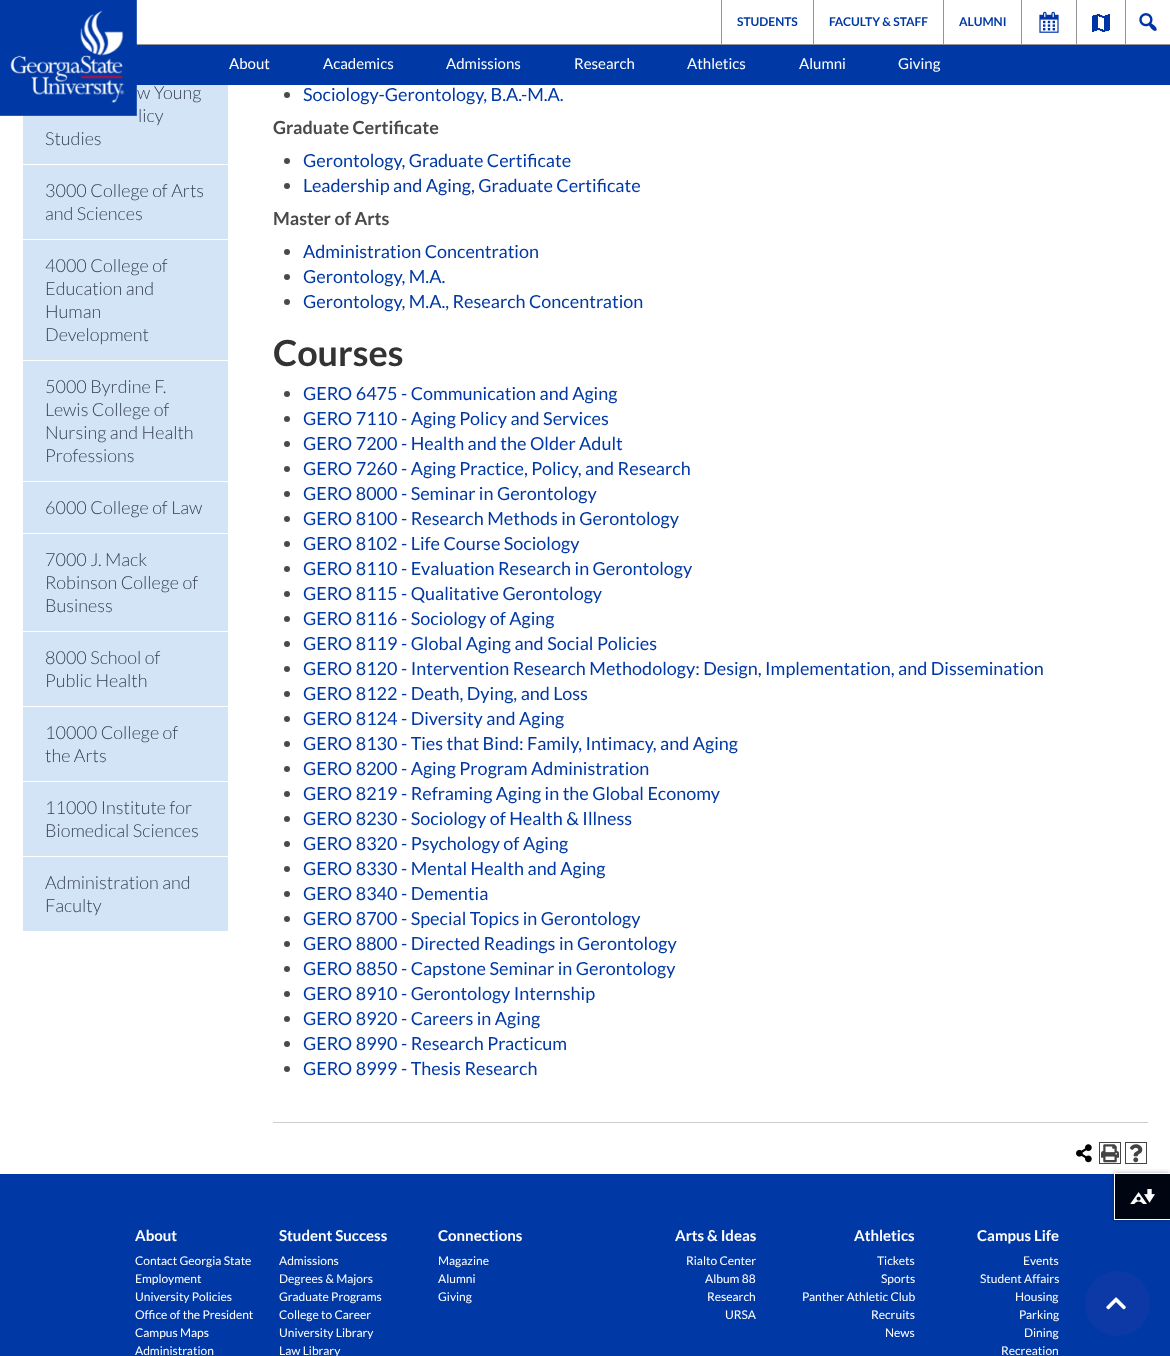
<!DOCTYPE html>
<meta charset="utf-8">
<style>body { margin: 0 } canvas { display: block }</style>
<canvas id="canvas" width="1170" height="1356"></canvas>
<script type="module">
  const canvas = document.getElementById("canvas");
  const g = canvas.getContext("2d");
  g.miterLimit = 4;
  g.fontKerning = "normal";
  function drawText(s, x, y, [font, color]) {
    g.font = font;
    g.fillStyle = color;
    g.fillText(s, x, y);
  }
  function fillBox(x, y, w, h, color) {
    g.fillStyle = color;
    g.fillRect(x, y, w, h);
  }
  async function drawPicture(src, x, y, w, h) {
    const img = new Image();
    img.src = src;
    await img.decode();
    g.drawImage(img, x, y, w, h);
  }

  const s1 = ["bold 12px Lato", "#0039A6"];
  const s2 = ["15px Lato", "#FFFFFF"];
  const s3 = ["300 18px Lato", "#374057"];
  const s4 = ["18px Lato", "#0039A6"];
  const s5 = ["bold 18px Lato", "#4A4A4A"];
  const s6 = ["bold 36px Lato", "#333333"];
  const s7 = ["bold 15px Lato", "#FFFFFF"];
  const s8 = ["12px Lato", "#FFFFFF"];

  fillBox(0, 0, 1170, 1356, "#FFFFFF");
  fillBox(136, 44, 1034, 1, "#949494");
  fillBox(136, 45, 1034, 40, "#0039A6");
  fillBox(23, 85, 205, 79, "#D2E4F6");
  await drawPicture("pic1.png", 0, 0, 137, 116);
  fillBox(721, 0, 1, 44, "#949494");
  drawText("STUDENTS", 737, 26, s1);
  fillBox(813, 0, 1, 44, "#949494");
  drawText("FACULTY & STAFF", 829, 26, s1);
  fillBox(943, 0, 1, 44, "#949494");
  drawText("ALUMNI", 959, 26, s1);
  fillBox(1021, 0, 1, 44, "#949494");
  await drawPicture("pic2.png", 1039, 11, 20, 22);
  fillBox(1076, 0, 1, 44, "#949494");
  await drawPicture("pic3.png", 1092, 14, 18, 18);
  fillBox(1125, 0, 1, 44, "#949494");
  await drawPicture("pic4.png", 1139, 13, 18, 18);
  drawText("About", 229, 69, s2);
  drawText("Academics", 323, 69, s2);
  drawText("Admissions", 446, 69, s2);
  drawText("Research", 574, 69, s2);
  drawText("Athletics", 687, 69, s2);
  drawText("Alumni", 799, 69, s2);
  drawText("Giving", 898, 69, s2);
  drawText("w Young", 137, 99, s3);
  drawText("licy", 138, 122, s3);
  drawText("Studies", 45, 145, s3);
  fillBox(23, 165, 205, 74, "#D2E4F6");
  drawText("3000 College of Arts", 45, 197, s3);
  drawText("and Sciences", 45, 220, s3);
  fillBox(23, 240, 205, 120, "#D2E4F6");
  drawText("4000 College of", 45, 272, s3);
  drawText("Education and", 45, 295, s3);
  drawText("Human", 45, 318, s3);
  drawText("Development", 45, 341, s3);
  fillBox(23, 361, 205, 120, "#D2E4F6");
  drawText("5000 Byrdine F.", 45, 393, s3);
  drawText("Lewis College of", 45, 416, s3);
  drawText("Nursing and Health", 45, 439, s3);
  drawText("Professions", 45, 462, s3);
  fillBox(23, 482, 205, 51, "#D2E4F6");
  drawText("6000 College of Law", 45, 514, s3);
  fillBox(23, 534, 205, 97, "#D2E4F6");
  drawText("7000 J. Mack", 45, 566, s3);
  drawText("Robinson College of", 45, 589, s3);
  drawText("Business", 45, 612, s3);
  fillBox(23, 632, 205, 74, "#D2E4F6");
  drawText("8000 School of", 45, 664, s3);
  drawText("Public Health", 45, 687, s3);
  fillBox(23, 707, 205, 74, "#D2E4F6");
  drawText("10000 College of", 45, 739, s3);
  drawText("the Arts", 45, 762, s3);
  fillBox(23, 782, 205, 74, "#D2E4F6");
  drawText("11000 Institute for", 45, 814, s3);
  drawText("Biomedical Sciences", 45, 837, s3);
  fillBox(23, 857, 205, 74, "#D2E4F6");
  drawText("Administration and", 45, 889, s3);
  drawText("Faculty", 45, 912, s3);
  g.fillStyle = "#4A4A4A";
  g.beginPath();
  g.arc(287, 95, 3, 0, Math.PI * 2);
  g.fill();
  drawText("Sociology-Gerontology, B.A.-M.A.", 303, 101, s4);
  drawText("Graduate Certificate", 273, 134, s5);
  g.beginPath();
  g.arc(287, 161, 3, 0, Math.PI * 2);
  g.fill();
  drawText("Gerontology, Graduate Certificate", 303, 167, s4);
  g.fillStyle = "#4A4A4A";
  g.beginPath();
  g.arc(287, 186, 3, 0, Math.PI * 2);
  g.fill();
  drawText("Leadership and Aging, Graduate Certificate", 303, 192, s4);
  drawText("Master of Arts", 273, 225, s5);
  g.beginPath();
  g.arc(287, 252, 3, 0, Math.PI * 2);
  g.fill();
  drawText("Administration Concentration", 303, 258, s4);
  g.fillStyle = "#4A4A4A";
  g.beginPath();
  g.arc(287, 277, 3, 0, Math.PI * 2);
  g.fill();
  drawText("Gerontology, M.A.", 303, 283, s4);
  g.fillStyle = "#4A4A4A";
  g.beginPath();
  g.arc(287, 302, 3, 0, Math.PI * 2);
  g.fill();
  drawText("Gerontology, M.A., Research Concentration", 303, 308, s4);
  drawText("Courses", 273, 366, s6);
  g.fillStyle = "#4A4A4A";
  g.beginPath();
  g.arc(287, 394, 3, 0, Math.PI * 2);
  g.fill();
  drawText("GERO 6475 - Communication and Aging", 303, 400, s4);
  g.fillStyle = "#4A4A4A";
  g.beginPath();
  g.arc(287, 419, 3, 0, Math.PI * 2);
  g.fill();
  drawText("GERO 7110 - Aging Policy and Services", 303, 425, s4);
  g.fillStyle = "#4A4A4A";
  g.beginPath();
  g.arc(287, 444, 3, 0, Math.PI * 2);
  g.fill();
  drawText("GERO 7200 - Health and the Older Adult", 303, 450, s4);
  g.fillStyle = "#4A4A4A";
  g.beginPath();
  g.arc(287, 469, 3, 0, Math.PI * 2);
  g.fill();
  drawText("GERO 7260 - Aging Practice, Policy, and Research", 303, 475, s4);
  g.fillStyle = "#4A4A4A";
  g.beginPath();
  g.arc(287, 494, 3, 0, Math.PI * 2);
  g.fill();
  drawText("GERO 8000 - Seminar in Gerontology", 303, 500, s4);
  g.fillStyle = "#4A4A4A";
  g.beginPath();
  g.arc(287, 519, 3, 0, Math.PI * 2);
  g.fill();
  drawText("GERO 8100 - Research Methods in Gerontology", 303, 525, s4);
  g.fillStyle = "#4A4A4A";
  g.beginPath();
  g.arc(287, 544, 3, 0, Math.PI * 2);
  g.fill();
  drawText("GERO 8102 - Life Course Sociology", 303, 550, s4);
  g.fillStyle = "#4A4A4A";
  g.beginPath();
  g.arc(287, 569, 3, 0, Math.PI * 2);
  g.fill();
  drawText("GERO 8110 - Evaluation Research in Gerontology", 303, 575, s4);
  g.fillStyle = "#4A4A4A";
  g.beginPath();
  g.arc(287, 594, 3, 0, Math.PI * 2);
  g.fill();
  drawText("GERO 8115 - Qualitative Gerontology", 303, 600, s4);
  g.fillStyle = "#4A4A4A";
  g.beginPath();
  g.arc(287, 619, 3, 0, Math.PI * 2);
  g.fill();
  drawText("GERO 8116 - Sociology of Aging", 303, 625, s4);
  g.fillStyle = "#4A4A4A";
  g.beginPath();
  g.arc(287, 644, 3, 0, Math.PI * 2);
  g.fill();
  drawText("GERO 8119 - Global Aging and Social Policies", 303, 650, s4);
  g.fillStyle = "#4A4A4A";
  g.beginPath();
  g.arc(287, 669, 3, 0, Math.PI * 2);
  g.fill();
  drawText("GERO 8120 - Intervention Research Methodology: Design, Implementation, and Dissemination", 303, 675, s4);
  g.fillStyle = "#4A4A4A";
  g.beginPath();
  g.arc(287, 694, 3, 0, Math.PI * 2);
  g.fill();
  drawText("GERO 8122 - Death, Dying, and Loss", 303, 700, s4);
  g.fillStyle = "#4A4A4A";
  g.beginPath();
  g.arc(287, 719, 3, 0, Math.PI * 2);
  g.fill();
  drawText("GERO 8124 - Diversity and Aging", 303, 725, s4);
  g.fillStyle = "#4A4A4A";
  g.beginPath();
  g.arc(287, 744, 3, 0, Math.PI * 2);
  g.fill();
  drawText("GERO 8130 - Ties that Bind: Family, Intimacy, and Aging", 303, 750, s4);
  g.fillStyle = "#4A4A4A";
  g.beginPath();
  g.arc(287, 769, 3, 0, Math.PI * 2);
  g.fill();
  drawText("GERO 8200 - Aging Program Administration", 303, 775, s4);
  g.fillStyle = "#4A4A4A";
  g.beginPath();
  g.arc(287, 794, 3, 0, Math.PI * 2);
  g.fill();
  drawText("GERO 8219 - Reframing Aging in the Global Economy", 303, 800, s4);
  g.fillStyle = "#4A4A4A";
  g.beginPath();
  g.arc(287, 819, 3, 0, Math.PI * 2);
  g.fill();
  drawText("GERO 8230 - Sociology of Health & Illness", 303, 825, s4);
  g.fillStyle = "#4A4A4A";
  g.beginPath();
  g.arc(287, 844, 3, 0, Math.PI * 2);
  g.fill();
  drawText("GERO 8320 - Psychology of Aging", 303, 850, s4);
  g.fillStyle = "#4A4A4A";
  g.beginPath();
  g.arc(287, 869, 3, 0, Math.PI * 2);
  g.fill();
  drawText("GERO 8330 - Mental Health and Aging", 303, 875, s4);
  g.fillStyle = "#4A4A4A";
  g.beginPath();
  g.arc(287, 894, 3, 0, Math.PI * 2);
  g.fill();
  drawText("GERO 8340 - Dementia", 303, 900, s4);
  g.fillStyle = "#4A4A4A";
  g.beginPath();
  g.arc(287, 919, 3, 0, Math.PI * 2);
  g.fill();
  drawText("GERO 8700 - Special Topics in Gerontology", 303, 925, s4);
  g.fillStyle = "#4A4A4A";
  g.beginPath();
  g.arc(287, 944, 3, 0, Math.PI * 2);
  g.fill();
  drawText("GERO 8800 - Directed Readings in Gerontology", 303, 950, s4);
  g.fillStyle = "#4A4A4A";
  g.beginPath();
  g.arc(287, 969, 3, 0, Math.PI * 2);
  g.fill();
  drawText("GERO 8850 - Capstone Seminar in Gerontology", 303, 975, s4);
  g.fillStyle = "#4A4A4A";
  g.beginPath();
  g.arc(287, 994, 3, 0, Math.PI * 2);
  g.fill();
  drawText("GERO 8910 - Gerontology Internship", 303, 1000, s4);
  g.fillStyle = "#4A4A4A";
  g.beginPath();
  g.arc(287, 1019, 3, 0, Math.PI * 2);
  g.fill();
  drawText("GERO 8920 - Careers in Aging", 303, 1025, s4);
  g.fillStyle = "#4A4A4A";
  g.beginPath();
  g.arc(287, 1044, 3, 0, Math.PI * 2);
  g.fill();
  drawText("GERO 8990 - Research Practicum", 303, 1050, s4);
  g.fillStyle = "#4A4A4A";
  g.beginPath();
  g.arc(287, 1069, 3, 0, Math.PI * 2);
  g.fill();
  drawText("GERO 8999 - Thesis Research", 303, 1075, s4);
  fillBox(273, 1122, 875, 1, "#CCCCCC");
  await drawPicture("pic5.png", 1076, 1144, 16, 19);
  g.strokeStyle = "#444444";
  g.strokeRect(1099.5, 1142.5, 21, 21);
  await drawPicture("pic6.png", 1101, 1144, 18, 19);
  g.strokeRect(1125.5, 1142.5, 21, 21);
  await drawPicture("pic7.png", 1130, 1144, 13, 19);
  fillBox(0, 1174, 1170, 182, "#0039A6");
  fillBox(1115, 1174, 55, 45, "#000611");
  drawText("About", 135, 1241, s7);
  drawText("Contact Georgia State", 135, 1265, s8);
  drawText("Employment", 135, 1283, s8);
  drawText("University Policies", 135, 1301, s8);
  drawText("Office of the President", 135, 1319, s8);
  drawText("Campus Maps", 135, 1337, s8);
  drawText("Administration", 135, 1355, s8);
  drawText("Student Success", 279, 1241, s7);
  drawText("Admissions", 279, 1265, s8);
  drawText("Degrees & Majors", 279, 1283, s8);
  drawText("Graduate Programs", 279, 1301, s8);
  drawText("College to Career", 279, 1319, s8);
  drawText("University Library", 279, 1337, s8);
  drawText("Law Library", 279, 1355, s8);
  drawText("Connections", 438, 1241, s7);
  drawText("Magazine", 438, 1265, s8);
  drawText("Alumni", 438, 1283, s8);
  drawText("Giving", 438, 1301, s8);
  drawText("Arts & Ideas", 675, 1241, s7);
  drawText("Rialto Center", 686, 1265, s8);
  drawText("Album 88", 705, 1283, s8);
  drawText("Research", 707, 1301, s8);
  drawText("URSA", 725, 1319, s8);
  drawText("Athletics", 854, 1241, s7);
  drawText("Tickets", 877, 1265, s8);
  drawText("Sports", 881, 1283, s8);
  drawText("Panther Athletic Club", 802, 1301, s8);
  drawText("Recruits", 871, 1319, s8);
  drawText("News", 885, 1337, s8);
  drawText("Campus Life", 977, 1241, s7);
  drawText("Events", 1023, 1265, s8);
  drawText("Student Affairs", 980, 1283, s8);
  drawText("Housing", 1015, 1301, s8);
  drawText("Parking", 1019, 1319, s8);
  drawText("Dining", 1024, 1337, s8);
  drawText("Recreation", 1001, 1355, s8);
  g.save();
  g.beginPath();
  g.moveTo(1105, 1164);
  g.lineTo(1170, 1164);
  g.lineTo(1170, 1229);
  g.lineTo(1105, 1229);
  g.closePath();
  g.moveTo(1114, 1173);
  g.lineTo(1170, 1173);
  g.lineTo(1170, 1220);
  g.lineTo(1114, 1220);
  g.closePath();
  g.clip("evenodd");
  g.fillStyle = "rgba(0, 0, 0, 0.3)";
  g.filter = "blur(2.5px)";
  g.beginPath();
  g.rect(1114, 1173, 56, 47);
  g.fill();
  g.filter = "none";
  g.restore();
  fillBox(1114, 1219, 56, 1, "#FFFFFF");
  fillBox(1114, 1173, 1, 47, "#FFFFFF");
  await drawPicture("pic8.png", 1130, 1189, 25, 15);
  g.fillStyle = "#0D39A6";
  g.beginPath();
  g.arc(1117.5, 1303.5, 32.5, 0, Math.PI * 2);
  g.fill();
  await drawPicture("pic9.png", 1106, 1297, 20, 13);
</script>
